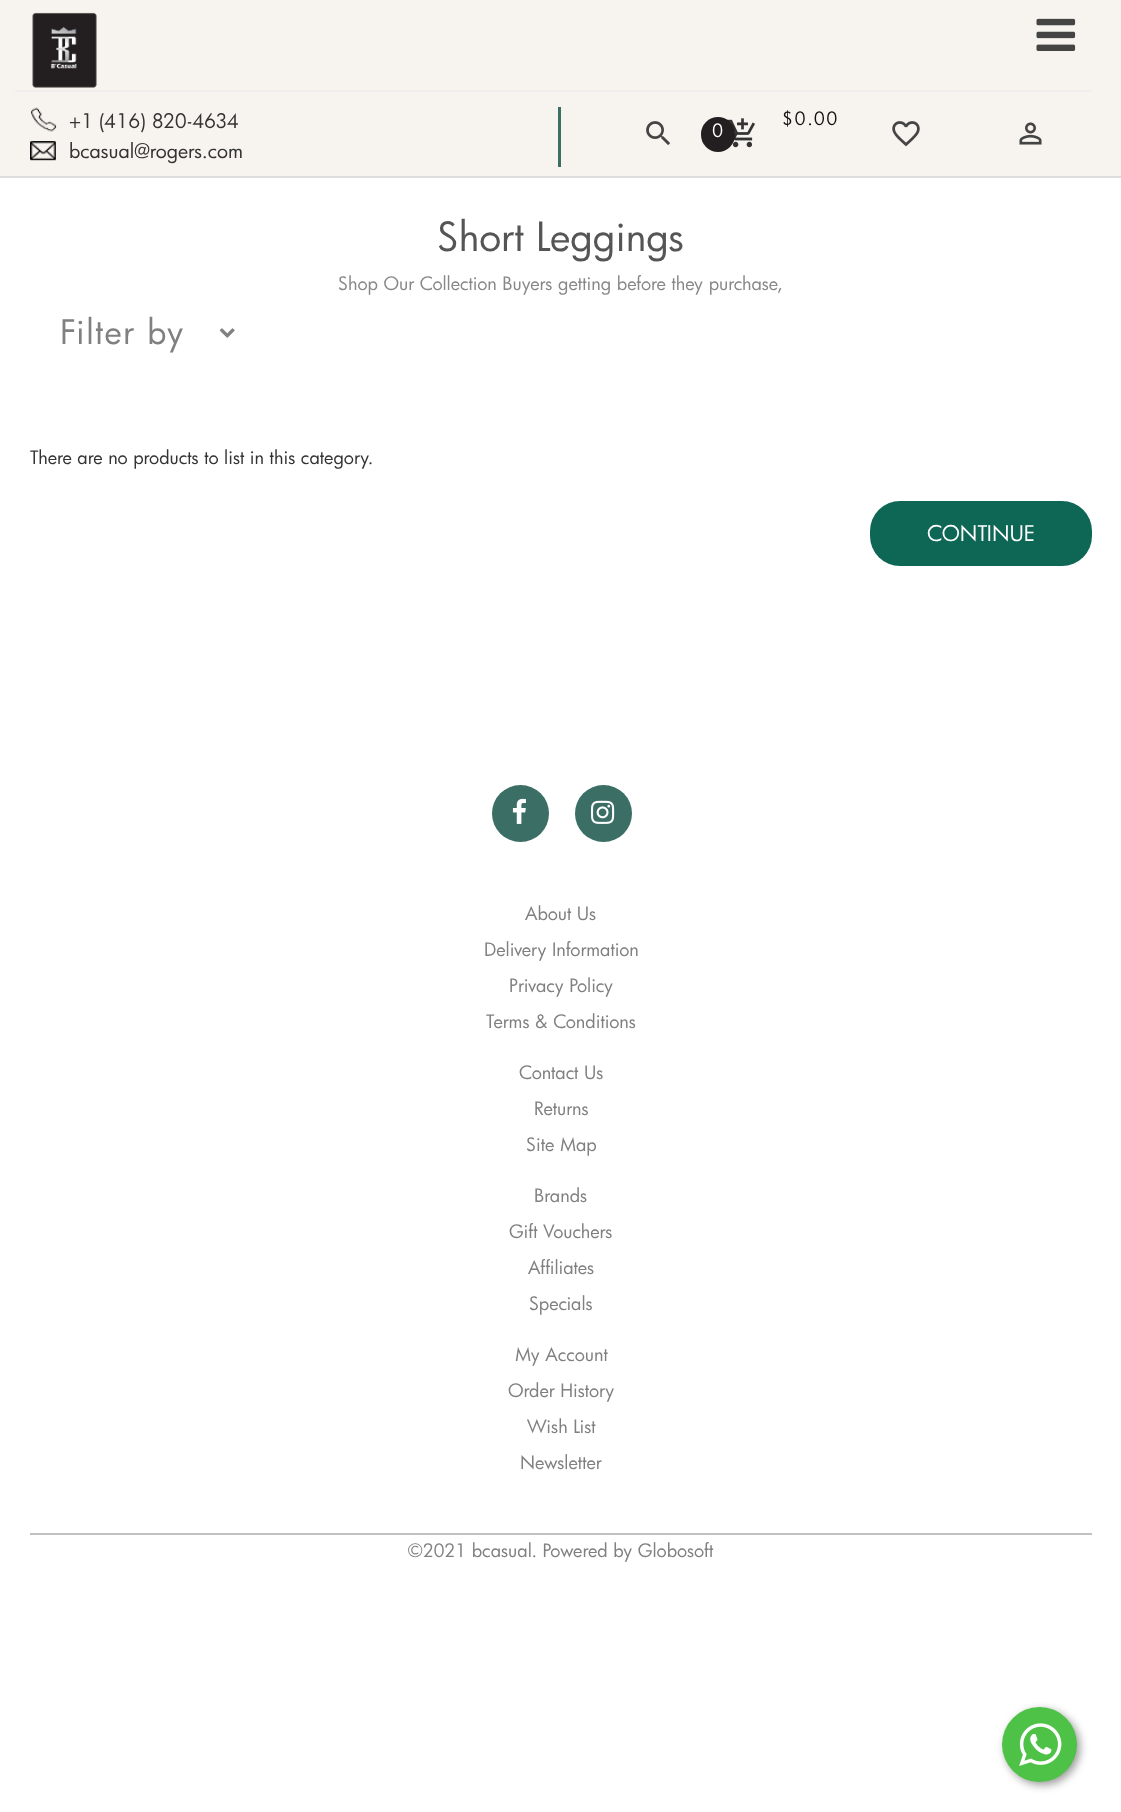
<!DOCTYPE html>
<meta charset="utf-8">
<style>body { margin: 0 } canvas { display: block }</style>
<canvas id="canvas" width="1121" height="1812"></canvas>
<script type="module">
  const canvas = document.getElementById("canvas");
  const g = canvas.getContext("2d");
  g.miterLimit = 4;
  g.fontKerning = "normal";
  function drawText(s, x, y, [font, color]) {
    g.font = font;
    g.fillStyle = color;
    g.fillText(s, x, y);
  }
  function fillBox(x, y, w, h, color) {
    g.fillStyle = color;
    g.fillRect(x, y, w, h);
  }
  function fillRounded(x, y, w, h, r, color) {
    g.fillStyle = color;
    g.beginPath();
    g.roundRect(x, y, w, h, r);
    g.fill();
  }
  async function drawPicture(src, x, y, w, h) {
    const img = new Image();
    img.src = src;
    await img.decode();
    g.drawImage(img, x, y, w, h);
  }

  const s1 = ["19.5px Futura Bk", "#333333"];
  const s2 = ["18px Futura Bk", "#FFFFFF"];
  const s3 = ["18px Futura Bk", "#111111"];
  const s4 = ["39px Futura Bk", "#555555"];
  const s5 = ["18px Futura Bk", "#888888"];
  const s6 = ["33px Futura Bk", "#808080"];
  const s7 = ["18px Futura Bk", "#333333"];
  const s8 = ["21px Futura Bk", "#FFFFFF"];
  const s9 = ["18px Futura Bk", "#808080"];

  fillBox(0, 0, 1121, 1812, "#FFFFFF");
  fillBox(0, 176, 1121, 2, "#DDDDDD");
  fillBox(0, 0, 1121, 176, "#F7F4EF");
  fillBox(15, 90, 1077, 2, "#EEEEEE");
  await drawPicture("pic1.png", 32, 12, 65, 76);
  await drawPicture("pic2.png", 1036, 18, 40, 33);
  fillBox(558, 107, 3, 60, "#3B6F65");
  await drawPicture("pic3.png", 31, 107, 26, 25);
  drawText("+1 (416) 820-4634", 69, 128, s1);
  await drawPicture("pic4.png", 30, 141, 26, 20);
  drawText("bcasual@rogers.com", 69, 158, s1);
  await drawPicture("pic5.png", 646, 121, 25, 25);
  await drawPicture("pic6.png", 727, 118, 28, 30);
  fillRounded(701, 117, 34, 35, 17, "#231F20");
  g.letterSpacing = "1.5px";
  drawText("0", 712, 137, s2);
  drawText("$0.00", 782, 125, s3);
  await drawPicture("pic7.png", 892, 121, 28, 26);
  await drawPicture("pic8.png", 1019, 122, 23, 23);
  g.letterSpacing = "0px";
  drawText("Short Leggings", 437, 251, s4);
  drawText("Shop Our Collection Buyers getting before they purchase,", 338, 290, s5);
  g.letterSpacing = "1.5px";
  drawText("Filter by", 60, 344, s6);
  await drawPicture("pic9.png", 219, 328, 16, 10);
  g.letterSpacing = "0px";
  drawText("There are no products to list in this category.", 30, 464, s7);
  fillRounded(870, 501, 222, 65, 30, "#0E6655");
  drawText("CONTINUE", 927, 541, s8);
  g.fillStyle = "#3B6F65";
  g.beginPath();
  g.arc(520.5, 813.5, 28.5, 0, Math.PI * 2);
  g.fill();
  await drawPicture("pic10.png", 512, 798, 14, 26);
  g.beginPath();
  g.arc(603.5, 813.5, 28.5, 0, Math.PI * 2);
  g.fill();
  await drawPicture("pic11.png", 591, 800, 24, 24);
  drawText("About Us", 525, 920, s9);
  drawText("Delivery Information", 484, 956, s9);
  drawText("Privacy Policy", 509, 992, s9);
  drawText("Terms & Conditions", 486, 1028, s9);
  drawText("Contact Us", 519, 1079, s9);
  drawText("Returns", 534, 1115, s9);
  drawText("Site Map", 526, 1151, s9);
  drawText("Brands", 534, 1202, s9);
  drawText("Gift Vouchers", 509, 1238, s9);
  drawText("Affiliates", 528, 1274, s9);
  drawText("Specials", 529, 1310, s9);
  drawText("My Account", 515, 1361, s9);
  drawText("Order History", 508, 1397, s9);
  drawText("Wish List", 527, 1433, s9);
  drawText("Newsletter", 520, 1469, s9);
  fillBox(30, 1533, 1062, 2, "#C1C1C1");
  drawText("©2021 bcasual. Powered by Globosoft", 408, 1557, s9);
  g.fillStyle = "rgba(0, 0, 0, 0.4)";
  g.filter = "blur(4.5px)";
  g.beginPath();
  g.roundRect(1005, 1710, 75, 75, 37.5);
  g.fill();
  g.filter = "none";
  g.fillStyle = "#4DC247";
  g.beginPath();
  g.arc(1039.5, 1744.5, 37.5, 0, Math.PI * 2);
  g.fill();
  await drawPicture("pic12.png", 1019, 1723, 43, 43);
</script>
